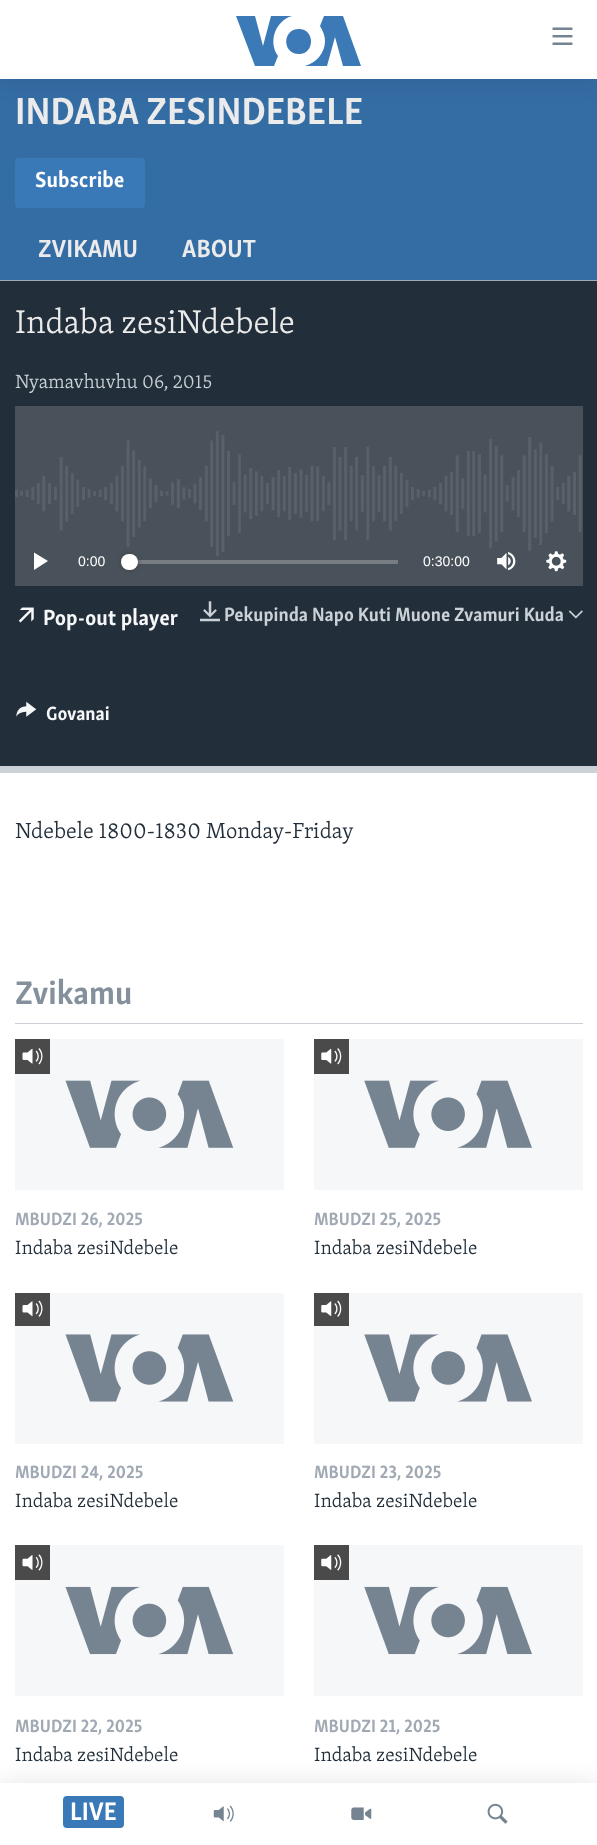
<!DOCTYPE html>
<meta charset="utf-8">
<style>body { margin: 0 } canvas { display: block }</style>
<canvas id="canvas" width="597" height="1845"></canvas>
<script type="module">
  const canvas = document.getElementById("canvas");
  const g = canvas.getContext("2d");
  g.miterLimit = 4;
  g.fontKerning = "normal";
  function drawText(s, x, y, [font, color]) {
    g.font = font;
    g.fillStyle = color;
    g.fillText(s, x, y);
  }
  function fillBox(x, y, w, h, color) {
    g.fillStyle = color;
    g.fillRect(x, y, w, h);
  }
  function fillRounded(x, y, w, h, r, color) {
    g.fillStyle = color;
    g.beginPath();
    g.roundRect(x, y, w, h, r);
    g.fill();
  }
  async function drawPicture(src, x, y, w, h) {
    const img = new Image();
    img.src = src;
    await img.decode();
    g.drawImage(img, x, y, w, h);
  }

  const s1 = ["bold 38.75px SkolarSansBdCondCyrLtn", "#EBEBEB"];
  const s2 = ["bold 22.5px SkolarSansBdCondCyrLtn", "#FFFFFF"];
  const s3 = ["bold 25.5px SkolarSansBdCondCyrLtn", "#EBEBEB"];
  const s4 = ["300 33.75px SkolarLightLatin", "#EBEBEB"];
  const s5 = ["300 19.7px SkolarLightLatin", "#CBD1D6"];
  const s6 = ["14px Liberation Sans", "#FFFFFF"];
  const s7 = ["bold 22.5px SkolarSansBdCondCyrLtn", "#F6F7F8"];
  const s8 = ["bold 19.7px SkolarSansBdCondCyrLtn", "#CBD1D6"];
  const s9 = ["bold 19.7px SkolarSansBdCondCyrLtn", "#F6F7F8"];
  const s10 = ["300 22.5px SkolarLightLatin", "#222F3A"];
  const s11 = ["bold 33.75px SkolarSansBdCondCyrLtn", "#84919D"];
  const s12 = ["bold 18.25px SkolarSansBdCondCyrLtn", "#A1AAB4"];
  const s13 = ["300 19.7px SkolarLightLatin", "#222F3A"];
  const s14 = ["bold 26px SkolarSansBdCondCyrLtn", "#FFFFFF"];

  fillBox(0, 0, 597, 1845, "#FFFFFF");
  fillBox(0, 79, 597, 201, "#346CA4");
  drawText("INDABA ZESINDEBELE", 15, 124, s1);
  fillRounded(15, 158, 130, 50, 4, "#3A79B7");
  drawText("Subscribe", 35, 187, s2);
  drawText("ZVIKAMU", 38, 257, s3);
  drawText("ABOUT", 182, 257, s3);
  fillBox(0, 281, 597, 485, "#222F3A");
  fillBox(0, 280, 597, 1, "#A1AAB4");
  fillBox(0, 766, 597, 7, "#CBD1D6");
  drawText("Indaba zesiNdebele", 15, 333, s4);
  drawText("Nyamavhuvhu 06, 2015", 15, 388, s5);
  fillBox(15, 406, 568, 180, "#49525A");
  await drawPicture("pic1.png", 15, 431, 567, 125);
  g.fillStyle = "#FFFFFF";
  g.beginPath();
  g.moveTo(34, 570);
  g.lineTo(48, 561);
  g.lineTo(34, 552.5);
  g.closePath();
  g.fill();
  drawText("0:00", 78, 566, s6);
  fillBox(129, 560, 269, 4, "#777D83");
  g.fillStyle = "#414144";
  g.filter = "blur(2px)";
  g.beginPath();
  g.roundRect(121, 554, 17, 16, 8);
  g.fill();
  g.filter = "none";
  fillRounded(121, 554, 17, 16, 8, "#FFFFFF");
  drawText("0:30:00", 423, 566, s6);
  await drawPicture("pic2.png", 497, 552, 19, 19);
  await drawPicture("pic3.png", 546, 551, 21, 21);
  await drawPicture("pic4.png", 18, 607, 16, 16);
  drawText("Pop-out player", 43, 625, s7);
  await drawPicture("pic5.png", 200, 601, 20, 21);
  drawText("Pekupinda Napo Kuti Muone Zvamuri Kuda", 224, 621, s8);
  await drawPicture("pic6.png", 568, 610, 15, 9);
  await drawPicture("pic7.png", 16, 701, 21, 16);
  drawText("Govanai", 46, 720, s9);
  drawText("Ndebele 1800-1830 Monday-Friday", 15, 838, s10);
  fillBox(15, 1023, 568, 1, "#CBD1D6");
  drawText("Zvikamu", 15, 1004, s11);
  fillBox(15, 1039, 269, 151, "#F6F7F8");
  await drawPicture("pic8.png", 65, 1080, 169, 68);
  fillBox(15, 1039, 35, 35, "#4A4A4A");
  await drawPicture("pic9.png", 22, 1048, 21, 17);
  drawText("MBUDZI 26, 2025", 15, 1225, s12);
  drawText("Indaba zesiNdebele", 15, 1254, s13);
  fillBox(314, 1039, 269, 151, "#F6F7F8");
  await drawPicture("pic10.png", 364, 1080, 168, 68);
  fillBox(314, 1039, 35, 35, "#4A4A4A");
  await drawPicture("pic11.png", 321, 1048, 21, 17);
  drawText("MBUDZI 25, 2025", 314, 1225, s12);
  drawText("Indaba zesiNdebele", 314, 1254, s13);
  fillBox(15, 1293, 269, 151, "#F6F7F8");
  await drawPicture("pic12.png", 65, 1334, 169, 68);
  fillBox(15, 1293, 35, 33, "#4A4A4A");
  await drawPicture("pic13.png", 22, 1300, 21, 17);
  drawText("MBUDZI 24, 2025", 15, 1478, s12);
  drawText("Indaba zesiNdebele", 15, 1507, s13);
  fillBox(314, 1293, 269, 151, "#F6F7F8");
  await drawPicture("pic14.png", 364, 1334, 168, 68);
  fillBox(314, 1293, 35, 33, "#4A4A4A");
  await drawPicture("pic15.png", 321, 1300, 21, 17);
  drawText("MBUDZI 23, 2025", 314, 1478, s12);
  drawText("Indaba zesiNdebele", 314, 1507, s13);
  fillBox(15, 1545, 269, 151, "#F6F7F8");
  await drawPicture("pic16.png", 65, 1586, 169, 69);
  fillBox(15, 1545, 35, 35, "#4A4A4A");
  await drawPicture("pic17.png", 22, 1554, 21, 17);
  drawText("MBUDZI 22, 2025", 15, 1732, s12);
  drawText("Indaba zesiNdebele", 15, 1761, s13);
  fillBox(314, 1545, 269, 151, "#F6F7F8");
  await drawPicture("pic18.png", 364, 1586, 168, 69);
  fillBox(314, 1545, 35, 35, "#4A4A4A");
  await drawPicture("pic19.png", 321, 1554, 21, 17);
  drawText("MBUDZI 21, 2025", 314, 1732, s12);
  drawText("Indaba zesiNdebele", 314, 1761, s13);
  g.fillStyle = "rgba(0, 0, 0, 0.1)";
  g.filter = "blur(12.5px)";
  g.beginPath();
  g.rect(0, 0, 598, 79);
  g.fill();
  g.filter = "none";
  fillBox(0, 0, 597, 79, "#FFFFFF");
  g.fillStyle = "#3B79B7";
  g.beginPath();
  g.moveTo(278, 56);
  g.lineTo(274, 66);
  g.lineTo(255, 66);
  g.lineTo(236, 16);
  g.lineTo(255, 16);
  g.lineTo(263, 46);
  g.lineTo(271, 16);
  g.lineTo(292, 16);
  g.bezierCurveTo(275, 21, 268, 42, 278, 56);
  g.closePath();
  g.moveTo(299, 29);
  g.bezierCurveTo(282, 29, 282, 54, 299, 54);
  g.bezierCurveTo(315, 54, 315, 29, 299, 29);
  g.closePath();
  g.moveTo(325, 41);
  g.bezierCurveTo(325, 53, 316, 63, 305, 66);
  g.lineTo(327, 66);
  g.lineTo(335, 37);
  g.lineTo(343, 66);
  g.lineTo(361, 66);
  g.lineTo(343, 16);
  g.lineTo(324, 16);
  g.lineTo(320, 26);
  g.bezierCurveTo(323, 31, 325, 36, 325, 41);
  g.closePath();
  g.fill();
  await drawPicture("pic20.png", 552, 27, 21, 18);
  g.fillStyle = "rgba(0, 0, 0, 0.1)";
  g.filter = "blur(12.5px)";
  g.beginPath();
  g.rect(0, 1783, 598, 62);
  g.fill();
  g.filter = "none";
  fillBox(0, 1783, 597, 62, "#FFFFFF");
  fillRounded(63, 1796, 61, 32, 4, "#3A79B7");
  drawText("LIVE", 70, 1820, s14);
  await drawPicture("pic21.png", 213, 1805, 21, 17);
  await drawPicture("pic22.png", 351, 1807, 21, 13);
  await drawPicture("pic23.png", 487, 1803, 21, 21);
</script>
